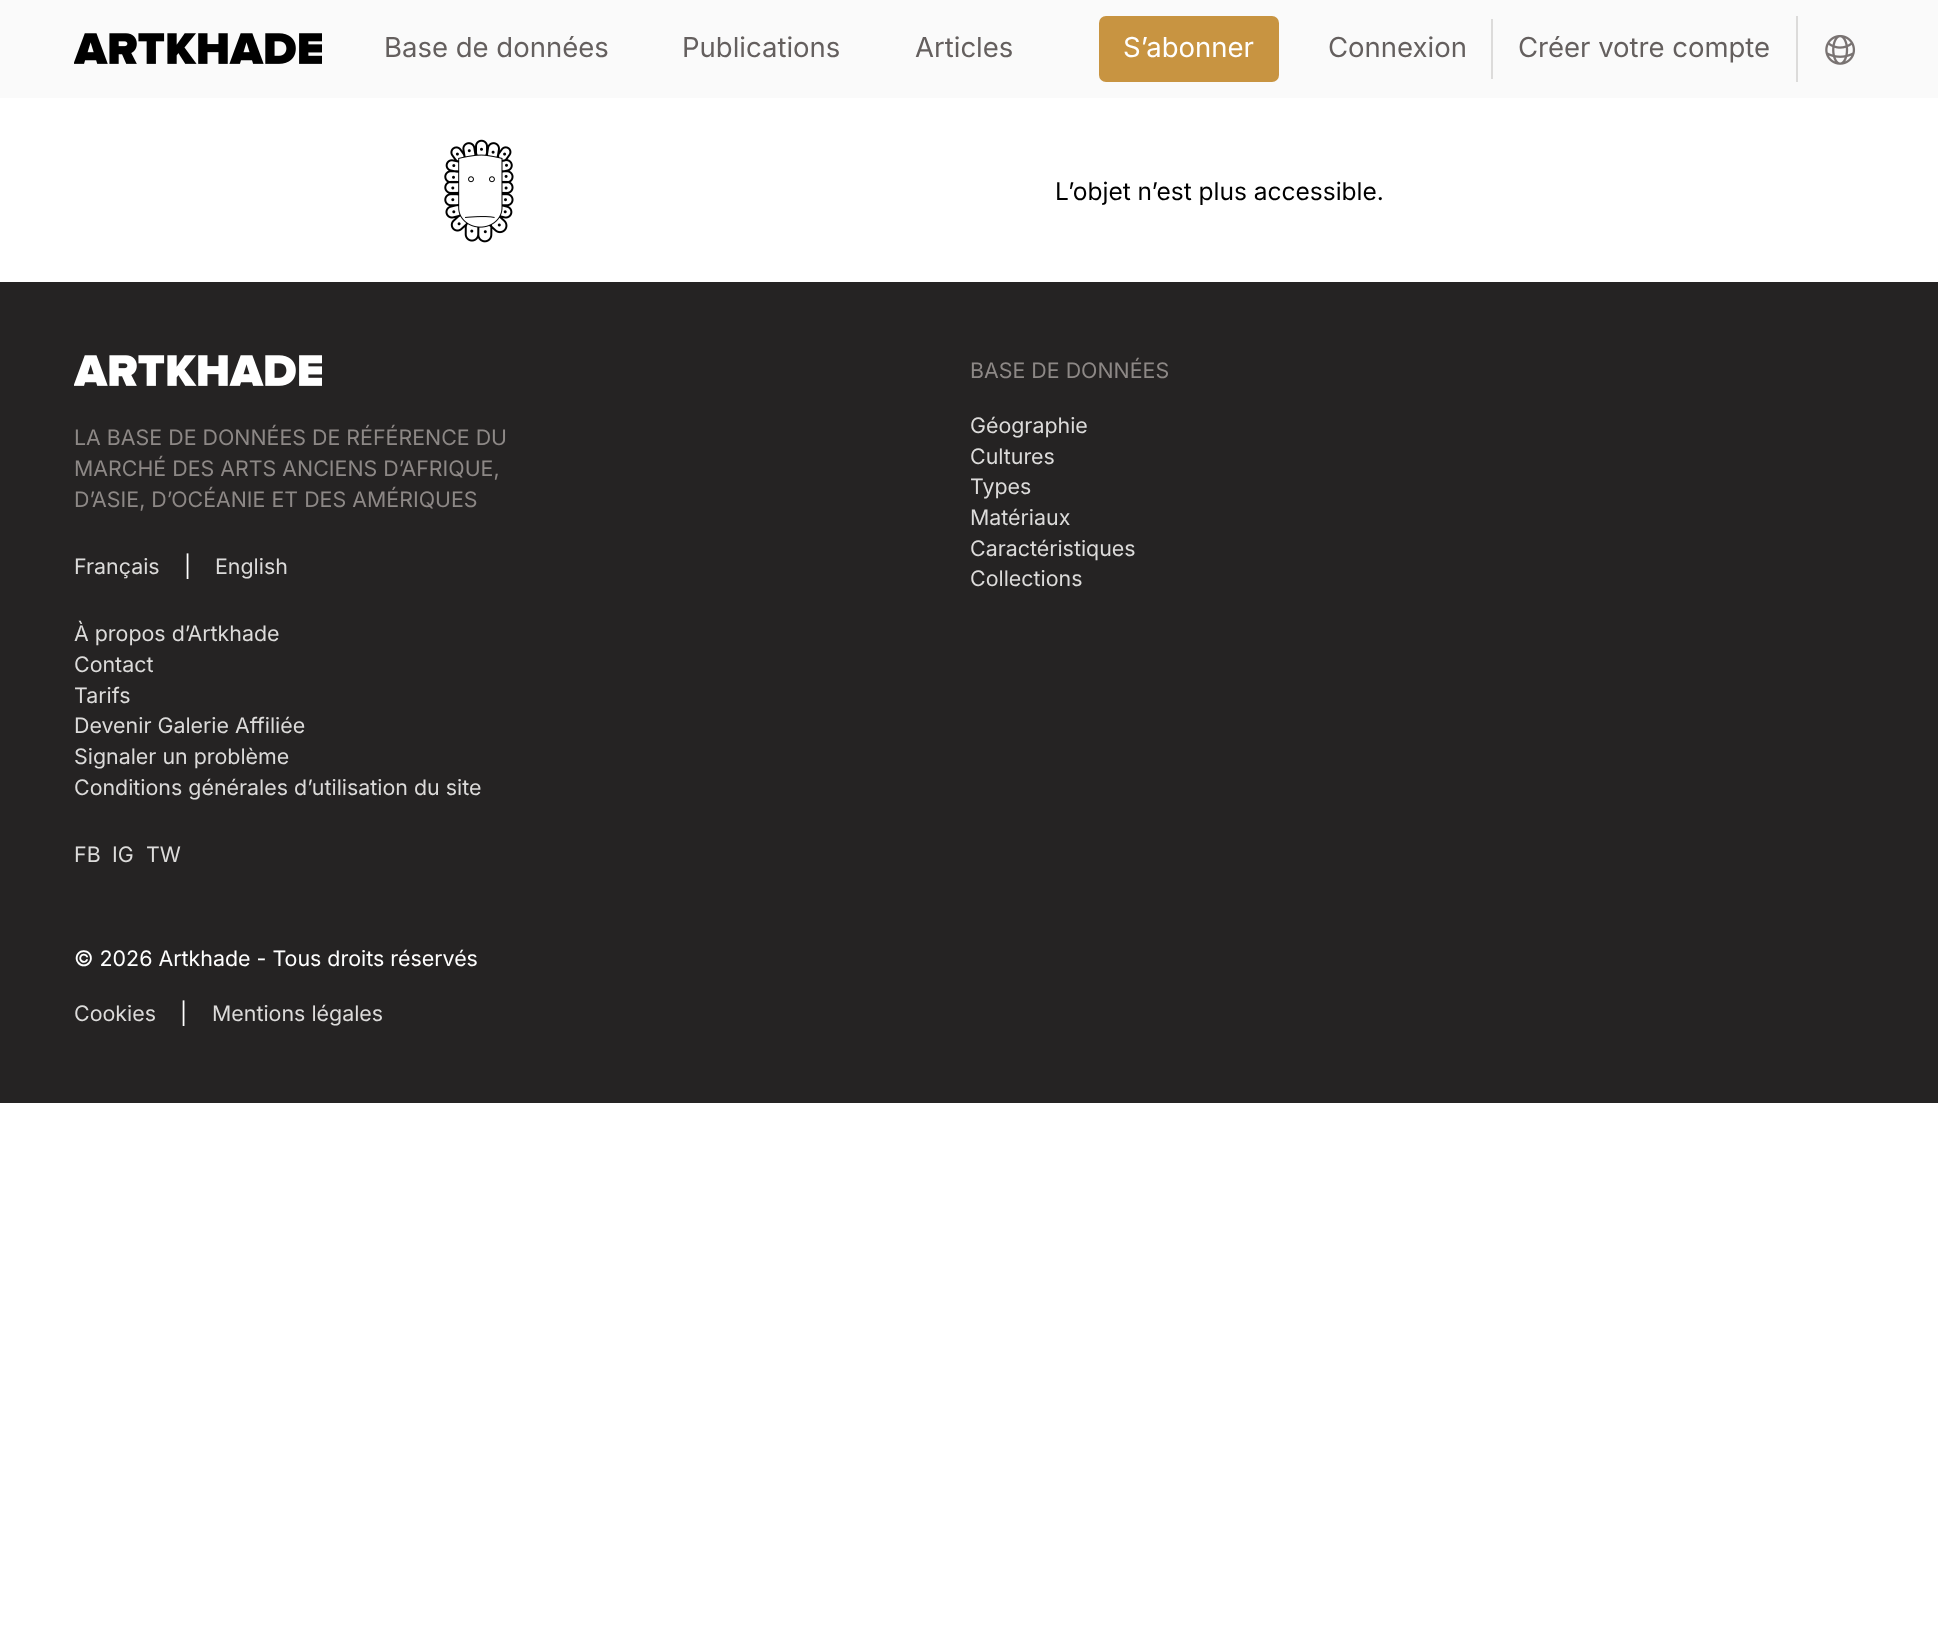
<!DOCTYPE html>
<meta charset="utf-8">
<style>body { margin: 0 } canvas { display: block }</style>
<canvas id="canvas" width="1938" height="1635"></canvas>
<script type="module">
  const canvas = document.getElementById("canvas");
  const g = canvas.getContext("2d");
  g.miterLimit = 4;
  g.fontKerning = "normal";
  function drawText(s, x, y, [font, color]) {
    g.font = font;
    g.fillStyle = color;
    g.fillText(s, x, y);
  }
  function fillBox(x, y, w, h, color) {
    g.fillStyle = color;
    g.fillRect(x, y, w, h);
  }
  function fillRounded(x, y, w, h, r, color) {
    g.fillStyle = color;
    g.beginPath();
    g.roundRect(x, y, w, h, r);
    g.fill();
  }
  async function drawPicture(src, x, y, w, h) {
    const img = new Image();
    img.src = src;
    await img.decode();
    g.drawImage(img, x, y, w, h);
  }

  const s1 = ["27.5px Inter", "#645F5E"];
  const s2 = ["27.5px Inter", "#FFFFFF"];
  const s3 = ["24.5px Inter", "#000000"];
  const s4 = ["21.4px Inter", "#8D8886"];
  const s5 = ["21.4px Inter", "#DCDBDA"];
  const s6 = ["21.4px Inter", "#FFFFFF"];

  fillBox(0, 0, 1938, 1635, "#FFFFFF");
  fillBox(0, 0, 1938, 98, "#FAFAFA");
  await drawPicture("pic1.png", 74, 33, 248, 31);
  drawText("Base de données", 384, 57, s1);
  drawText("Publications", 682, 57, s1);
  drawText("Articles", 915, 57, s1);
  fillRounded(1099, 16, 180, 66, 7, "#C89441");
  drawText("S’abonner", 1123, 57, s2);
  drawText("Connexion", 1328, 57, s1);
  fillBox(1491, 19, 2, 60, "#DCDBDA");
  drawText("Créer votre compte", 1518, 57, s1);
  fillBox(1796, 16, 2, 66, "#DCDBDA");
  await drawPicture("pic2.png", 1825, 34, 31, 31);
  await drawPicture("pic3.png", 444, 139, 70, 104);
  drawText("L’objet n’est plus accessible.", 1055, 200, s3);
  fillBox(0, 282, 1938, 821, "#252323");
  await drawPicture("pic4.png", 74, 355, 248, 31);
  drawText("LA BASE DE DONNÉES DE RÉFÉRENCE DU", 74, 445, s4);
  drawText("MARCHÉ DES ARTS ANCIENS D’AFRIQUE,", 74, 476, s4);
  drawText("D’ASIE, D’OCÉANIE ET DES AMÉRIQUES", 74, 507, s4);
  drawText("Français", 74, 574, s5);
  drawText("|", 184, 574, s6);
  drawText("English", 215, 574, s5);
  drawText("À propos d’Artkhade", 74, 641, s5);
  drawText("Contact", 74, 672, s5);
  drawText("Tarifs", 74, 703, s5);
  drawText("Devenir Galerie Affiliée", 74, 733, s5);
  drawText("Signaler un problème", 74, 764, s5);
  drawText("Conditions générales d’utilisation du site", 74, 795, s5);
  drawText("FB", 74, 862, s5);
  drawText("IG", 112, 862, s5);
  drawText("TW", 146, 862, s5);
  drawText("BASE DE DONNÉES", 970, 378, s4);
  drawText("Géographie", 970, 433, s5);
  drawText("Cultures", 970, 464, s5);
  drawText("Types", 970, 494, s5);
  drawText("Matériaux", 970, 525, s5);
  drawText("Caractéristiques", 970, 556, s5);
  drawText("Collections", 970, 586, s5);
  drawText("© 2026 Artkhade - Tous droits réservés", 74, 966, s6);
  drawText("Cookies", 74, 1021, s5);
  drawText("|", 180, 1021, s6);
  drawText("Mentions légales", 212, 1021, s5);
</script>
